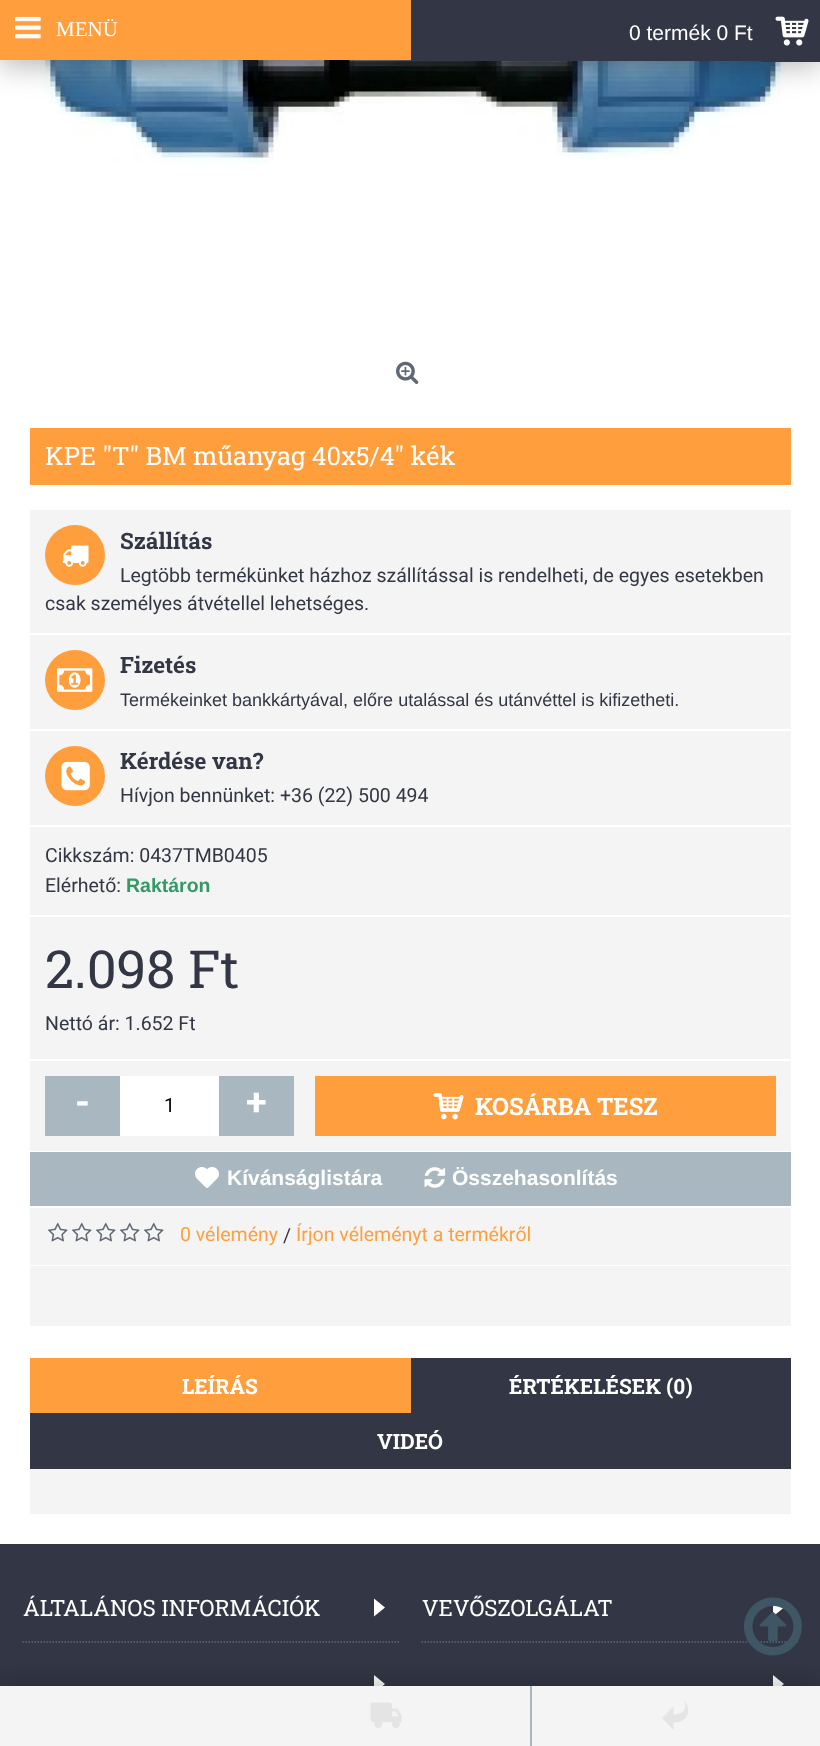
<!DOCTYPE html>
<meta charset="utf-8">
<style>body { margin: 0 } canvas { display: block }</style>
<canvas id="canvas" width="820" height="1746"></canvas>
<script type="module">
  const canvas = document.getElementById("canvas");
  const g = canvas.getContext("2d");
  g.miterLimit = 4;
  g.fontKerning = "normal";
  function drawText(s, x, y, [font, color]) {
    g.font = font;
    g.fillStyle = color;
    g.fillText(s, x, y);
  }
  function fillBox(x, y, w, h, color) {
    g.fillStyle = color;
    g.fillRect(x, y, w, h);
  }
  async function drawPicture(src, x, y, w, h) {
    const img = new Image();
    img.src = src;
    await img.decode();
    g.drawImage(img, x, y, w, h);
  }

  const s1 = ["21px Liberation Serif", "#FFFFFF"];
  const s2 = ["21px Liberation Sans", "#FFFFFF"];
  const s3 = ["25.5px Roboto Slab", "#FFFFFF"];
  const s4 = ["bold 22.5px Roboto Slab", "#333745"];
  const s5 = ["19.5px Roboto", "#333745"];
  const s6 = ["18px Liberation Sans", "#333745"];
  const s7 = ["bold 19.5px Liberation Sans", "#339965"];
  const s8 = ["52.5px Roboto Slab", "#333745"];
  const s9 = ["bold 38px Roboto", "#FFFFFF"];
  const s10 = ["19.5px Roboto", "#000000"];
  const s11 = ["bold 24px Roboto Slab", "#FFFFFF"];
  const s12 = ["bold 21px Liberation Sans", "#FFFFFF"];
  const s13 = ["19.5px Roboto", "#FF9E3C"];
  const s14 = ["bold 21px Roboto Slab", "#FFFFFF"];
  const s15 = ["22.5px Roboto Slab", "#FFFFFF"];

  fillBox(0, 0, 820, 1746, "#FFFFFF");
  await drawPicture("pic4.png", 37, 60, 748, 104);
  g.fillStyle = "rgba(0, 0, 0, 0.3)";
  g.filter = "blur(15px)";
  g.beginPath();
  g.rect(0, 5, 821, 60);
  g.fill();
  g.filter = "none";
  fillBox(0, 0, 411, 60, "#FF9E3C");
  await drawPicture("pic1.png", 15, 16, 26, 23);
  drawText("MENÜ", 56, 36, s1);
  fillBox(413, 2, 348, 57, "#333745");
  fillBox(411, 0, 409, 2, "#333745");
  fillBox(411, 59, 350, 2, "#333745");
  fillBox(411, 0, 2, 60, "#333745");
  drawText("0 termék 0 Ft", 629, 40, s2);
  fillBox(761, 2, 59, 60, "#333745");
  await drawPicture("pic2.png", 775, 16, 34, 30);
  fillBox(0, 1544, 820, 142, "#333745");
  g.fillStyle = "#FFFFFF";
  g.beginPath();
  g.moveTo(374, 1675);
  g.lineTo(374, 1693);
  g.lineTo(385, 1684);
  g.closePath();
  g.fill();
  g.beginPath();
  g.moveTo(773, 1675);
  g.lineTo(773, 1693);
  g.lineTo(784, 1684);
  g.closePath();
  g.fill();
  fillBox(0, 1686, 820, 60, "#F4F4F4");
  g.beginPath();
  g.moveTo(22.5, 1642);
  g.lineTo(399, 1642);
  g.strokeStyle = "#5F6874";
  g.lineWidth = 1.5;
  g.setLineDash([1.5, 1.5]);
  g.stroke();
  g.beginPath();
  g.moveTo(421.5, 1642);
  g.lineTo(798, 1642);
  g.stroke();
  g.save();
  g.beginPath();
  g.rect(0, 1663, 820, 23);
  g.clip();
  g.fillStyle = "rgba(0, 0, 0, 0.3)";
  g.filter = "blur(15px)";
  g.beginPath();
  g.rect(0, 1686, 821, 60);
  g.fill();
  g.filter = "none";
  g.restore();
  fillBox(530, 1686, 2, 60, "#A9B8C0");
  await drawPicture("pic3.png", 370, 1702, 32, 26);
  g.fillStyle = "#E4E4E4";
  g.beginPath();
  g.moveTo(673.5, 1722.5);
  g.lineTo(673.5, 1730);
  g.lineTo(662, 1718);
  g.lineTo(673.5, 1706.5);
  g.lineTo(673.5, 1714.5);
  g.bezierCurveTo(684, 1714.5, 688.5, 1708, 683, 1699);
  g.bezierCurveTo(692.5, 1709, 688.5, 1723, 673.5, 1722.5);
  g.closePath();
  g.fill();
  await drawPicture("pic5.png", 396, 361, 23, 23);
  fillBox(30, 428, 761, 57, "#FF9E3C");
  drawText("KPE \"T\" BM műanyag 40x5/4\" kék", 45, 465, s3);
  fillBox(30, 510, 761, 123, "#F4F4F4");
  g.fillStyle = "#FF9E3C";
  g.beginPath();
  g.arc(75, 555, 30, 0, Math.PI * 2);
  g.fill();
  await drawPicture("pic6.png", 62, 545, 27, 22);
  drawText("Szállítás", 120, 549, s4);
  drawText("Legtöbb termékünket házhoz szállítással is rendelheti, de egyes esetekben", 120, 582, s5);
  drawText("csak személyes átvétellel lehetséges.", 45, 610, s5);
  fillBox(30, 635, 761, 94, "#F4F4F4");
  g.fillStyle = "#FF9E3C";
  g.beginPath();
  g.arc(75, 680, 30, 0, Math.PI * 2);
  g.fill();
  await drawPicture("pic7.png", 57, 668, 36, 24);
  drawText("Fizetés", 120, 673, s4);
  drawText("Termékeinket bankkártyával, előre utalással és utánvéttel is kifizetheti.", 120, 706, s6);
  fillBox(30, 731, 761, 94, "#F4F4F4");
  g.fillStyle = "#FF9E3C";
  g.beginPath();
  g.arc(75, 776, 30, 0, Math.PI * 2);
  g.fill();
  await drawPicture("pic8.png", 61, 761, 29, 30);
  drawText("Kérdése van?", 120, 769, s4);
  drawText("Hívjon bennünket: +36 (22) 500 494", 120, 802, s5);
  fillBox(30, 827, 761, 88, "#F4F4F4");
  drawText("Cikkszám: 0437TMB0405", 45, 862, s5);
  drawText("Elérhető:", 45, 892, s5);
  drawText("Raktáron", 126, 892, s7);
  fillBox(30, 917, 761, 142, "#F4F4F4");
  drawText("2.098 Ft", 45, 988, s8);
  drawText("Nettó ár: 1.652 Ft", 45, 1030, s5);
  fillBox(30, 1061, 761, 90, "#F4F4F4");
  fillBox(45, 1076, 75, 60, "#A9B8C0");
  drawText("-", 75, 1115, s9);
  fillBox(120, 1076, 99, 60, "#FFFFFF");
  drawText("1", 164, 1112, s10);
  fillBox(219, 1076, 75, 60, "#A9B8C0");
  drawText("+", 246, 1115, s9);
  fillBox(315, 1076, 461, 60, "#FF9E3C");
  await drawPicture("pic9.png", 433, 1093, 31, 27);
  drawText("KOSÁRBA TESZ", 475, 1115, s11);
  fillBox(30, 1152, 761, 54, "#A9B8C0");
  await drawPicture("pic10.png", 195, 1167, 24, 21);
  drawText("Kívánságlistára", 227, 1185, s12);
  await drawPicture("pic11.png", 424, 1167, 22, 21);
  drawText("Összehasonlítás", 452, 1185, s12);
  fillBox(30, 1208, 761, 57, "#F4F4F4");
  await drawPicture("pic12.png", 48, 1222, 20, 20);
  await drawPicture("pic12.png", 72, 1222, 20, 20);
  await drawPicture("pic12.png", 96, 1222, 20, 20);
  await drawPicture("pic12.png", 120, 1222, 20, 20);
  await drawPicture("pic12.png", 144, 1222, 20, 20);
  drawText("0 vélemény", 180, 1241, s13);
  drawText("/", 283, 1242, s5);
  drawText("Írjon véleményt a termékről", 296, 1241, s13);
  fillBox(30, 1266, 761, 60, "#F4F4F4");
  fillBox(30, 1358, 381, 55, "#FF9E3C");
  drawText("LEÍRÁS", 182, 1394, s14);
  fillBox(411, 1358, 380, 55, "#333745");
  drawText("ÉRTÉKELÉSEK (0)", 509, 1394, s14);
  fillBox(30, 1413, 761, 56, "#333745");
  drawText("VIDEÓ", 377, 1449, s14);
  fillBox(30, 1469, 761, 45, "#F4F4F4");
  drawText("ÁLTALÁNOS INFORMÁCIÓK", 23, 1616, s15);
  g.beginPath();
  g.moveTo(374, 1598.5);
  g.lineTo(374, 1616.5);
  g.lineTo(385, 1607.5);
  g.closePath();
  g.fill();
  drawText("VEVŐSZOLGÁLAT", 422, 1616, s15);
  g.beginPath();
  g.moveTo(773, 1598.5);
  g.lineTo(773, 1616.5);
  g.lineTo(784, 1607.5);
  g.closePath();
  g.fill();
  await drawPicture("pic13.png", 744, 1597, 58, 59);
</script>
